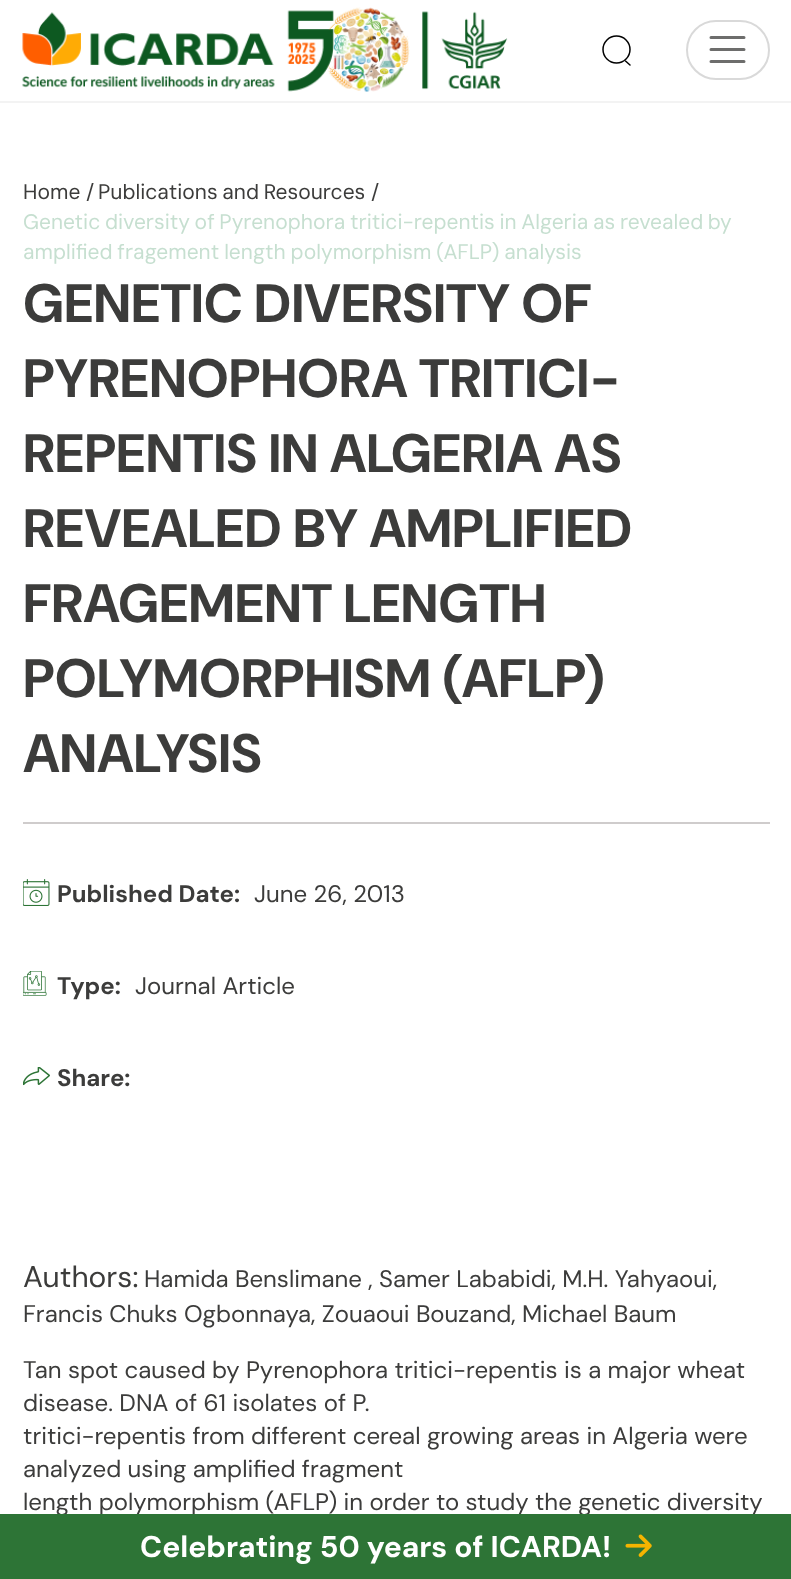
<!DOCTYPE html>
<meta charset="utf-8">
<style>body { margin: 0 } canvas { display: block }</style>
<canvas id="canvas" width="791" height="1579"></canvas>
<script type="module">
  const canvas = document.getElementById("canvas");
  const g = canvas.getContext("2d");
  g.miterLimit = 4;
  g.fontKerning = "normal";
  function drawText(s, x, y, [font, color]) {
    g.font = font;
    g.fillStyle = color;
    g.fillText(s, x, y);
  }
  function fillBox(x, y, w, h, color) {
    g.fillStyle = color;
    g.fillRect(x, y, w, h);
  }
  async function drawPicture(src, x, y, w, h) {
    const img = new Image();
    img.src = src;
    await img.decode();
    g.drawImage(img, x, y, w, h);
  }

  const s1 = ["21px DM Sans", "#3C3C3B"];
  const s2 = ["21px DM Sans", "#C6DFD0"];
  const s3 = ["bold 54px DM Sans", "#3C3C3B"];
  const s4 = ["bold 24px 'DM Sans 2'", "#3C3C3B"];
  const s5 = ["24px 'DM Sans 2'", "#3C3C3B"];
  const s6 = ["30px 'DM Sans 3'", "#3C3C3B"];
  const s7 = ["bold 30px 'DM Sans 3'", "#FFFFFF"];

  fillBox(0, 0, 791, 1579, "#FFFFFF");
  fillBox(0, 101, 791, 2, "#F3F3F3");
  await drawPicture("pic1.png", 22, 7, 486, 85);
  g.beginPath();
  g.arc(616.5, 49.5, 13.5, 0, Math.PI * 2);
  g.strokeStyle = "#000000";
  g.lineWidth = 1.5;
  g.stroke();
  g.beginPath();
  g.moveTo(625.5, 61);
  g.lineTo(630, 65);
  g.lineCap = "round";
  g.stroke();
  g.beginPath();
  g.roundRect(687, 21, 82, 58, 29);
  g.strokeStyle = "#D9D9D9";
  g.lineWidth = 2;
  g.stroke();
  g.beginPath();
  g.moveTo(711, 37.5);
  g.lineTo(744, 37.5);
  g.moveTo(711, 49.5);
  g.lineTo(744, 49.5);
  g.moveTo(711, 61.5);
  g.lineTo(744, 61.5);
  g.strokeStyle = "#6D6D6C";
  g.lineWidth = 3;
  g.stroke();
  drawText("Home /", 23, 199, s1);
  g.wordSpacing = "-1px";
  drawText("Publications and Resources", 98, 199, s1);
  g.wordSpacing = "0px";
  drawText("/", 371, 199, s1);
  g.wordSpacing = "-1px";
  drawText("Genetic diversity of Pyrenophora tritici-repentis in Algeria as revealed by", 23, 229, s2);
  g.wordSpacing = "-0.75px";
  drawText("amplified fragement length polymorphism (AFLP) analysis", 23, 259, s2);
  fillBox(23, 822, 747, 2, "#CFCCCC");
  g.wordSpacing = "0px";
  drawText("GENETIC DIVERSITY OF", 23, 322, s3);
  drawText("PYRENOPHORA TRITICI-", 23, 397, s3);
  drawText("REPENTIS IN ALGERIA AS", 23, 472, s3);
  drawText("REVEALED BY AMPLIFIED", 23, 547, s3);
  drawText("FRAGEMENT LENGTH", 23, 622, s3);
  drawText("POLYMORPHISM (AFLP)", 23, 697, s3);
  drawText("ANALYSIS", 23, 772, s3);
  await drawPicture("pic2.png", 23, 879, 27, 27);
  drawText("Published Date:", 57, 902, s4);
  drawText("June 26, 2013", 254, 902, s5);
  await drawPicture("pic3.png", 23, 971, 24, 25);
  drawText("Type:", 57, 994, s4);
  drawText("Journal Article", 135, 994, s5);
  await drawPicture("pic4.png", 23, 1067, 27, 19);
  drawText("Share:", 57, 1086, s4);
  drawText("Authors:", 23, 1287, s6);
  drawText("Hamida Benslimane , Samer Lababidi, M.H. Yahyaoui,", 144, 1287, s5);
  drawText("Francis Chuks Ogbonnaya, Zouaoui Bouzand, Michael Baum", 23, 1322, s5);
  drawText("Tan spot caused by Pyrenophora tritici-repentis is a major wheat", 23, 1378, s5);
  drawText("disease. DNA of 61 isolates of P.", 23, 1411, s5);
  drawText("tritici-repentis from different cereal growing areas in Algeria were", 23, 1444, s5);
  drawText("analyzed using amplified fragment", 23, 1477, s5);
  drawText("length polymorphism (AFLP) in order to study the genetic diversity", 23, 1510, s5);
  fillBox(0, 1514, 791, 65, "#2D7436");
  drawText("Celebrating 50 years of ICARDA!", 140, 1557, s7);
  await drawPicture("pic5.png", 625, 1534, 27, 23);
</script>
